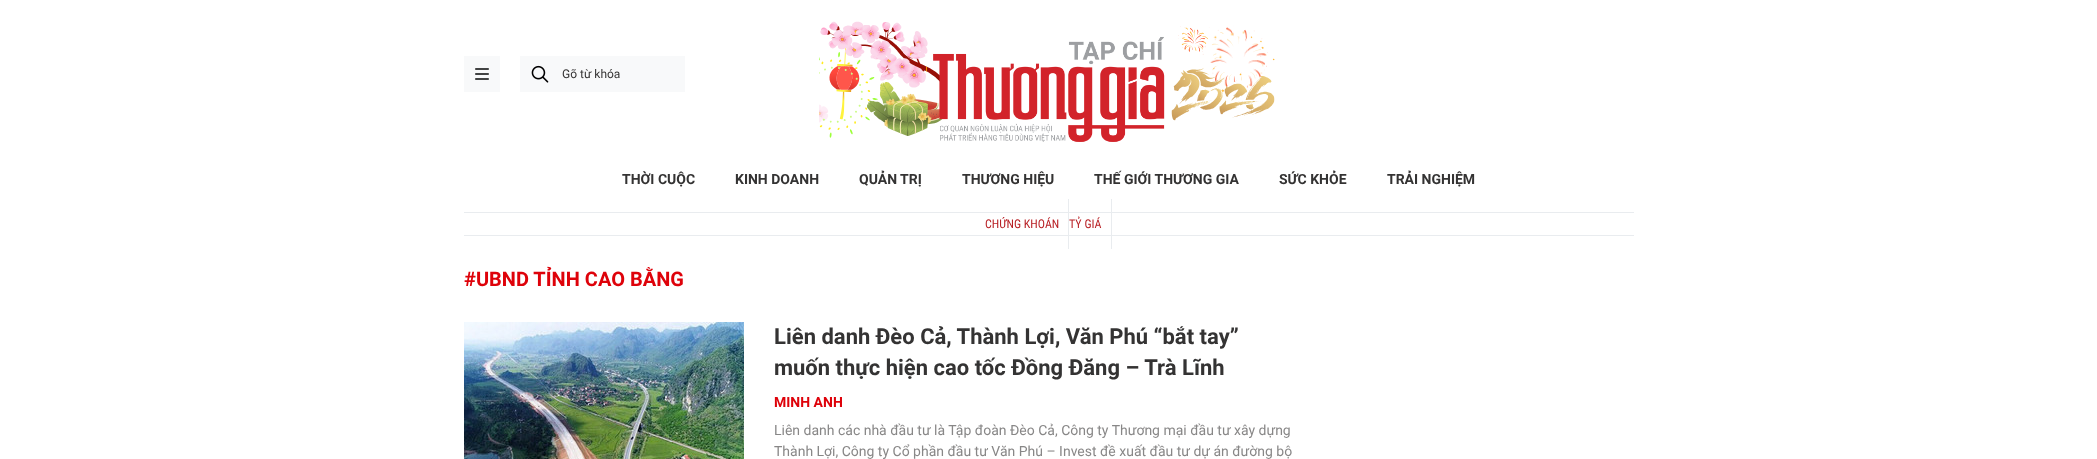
<!DOCTYPE html>
<meta charset="utf-8">
<style>body { margin: 0 } canvas { display: block }</style>
<canvas id="canvas" width="2097" height="459"></canvas>
<script type="module">
  const canvas = document.getElementById("canvas");
  const g = canvas.getContext("2d");
  g.miterLimit = 4;
  g.fontKerning = "normal";
  function drawText(s, x, y, [font, color]) {
    g.font = font;
    g.fillStyle = color;
    g.fillText(s, x, y);
  }
  function fillBox(x, y, w, h, color) {
    g.fillStyle = color;
    g.fillRect(x, y, w, h);
  }
  async function drawPicture(src, x, y, w, h) {
    const img = new Image();
    img.src = src;
    await img.decode();
    g.drawImage(img, x, y, w, h);
  }

  const s1 = ["12px Roboto", "#343333"];
  const s2 = ["bold 14px Roboto", "#343333"];
  const s3 = ["12px Roboto Condensed", "#B82025"];
  const s4 = ["bold 20px Roboto", "#DE020A"];
  const s5 = ["bold 22px Roboto", "#343333"];
  const s6 = ["bold 14px Roboto", "#DE020A"];
  const s7 = ["14px Roboto", "#888787"];

  fillBox(0, 0, 2097, 459, "#FFFFFF");
  fillBox(464, 56, 36, 36, "#F8F9FA");
  await drawPicture("pic1.png", 475, 68, 14, 12);
  fillBox(520, 56, 165, 36, "#F8F9FA");
  await drawPicture("pic2.png", 531, 65, 18, 18);
  drawText("Gõ từ khóa", 562, 78, s1);
  await drawPicture("pic3.png", 819, 21, 456, 121);
  drawText("THỜI CUỘC", 622, 184, s2);
  drawText("KINH DOANH", 735, 184, s2);
  drawText("QUẢN TRỊ", 859, 184, s2);
  drawText("THƯƠNG HIỆU", 962, 184, s2);
  drawText("THẾ GIỚI THƯƠNG GIA", 1094, 184, s2);
  drawText("SỨC KHỎE", 1279, 184, s2);
  drawText("TRẢI NGHIỆM", 1387, 184, s2);
  fillBox(464, 212, 1170, 1, "#E9ECEF");
  fillBox(464, 235, 1170, 1, "#E9ECEF");
  drawText("CHỨNG KHOÁN", 985, 228, s3);
  fillBox(1068, 199, 1, 50, "#E9ECEF");
  drawText("TỶ GIÁ", 1069, 228, s3);
  fillBox(1111, 199, 1, 50, "#E9ECEF");
  drawText("#UBND TỈNH CAO BẰNG", 464, 286, s4);
  await drawPicture("pic4.png", 464, 322, 280, 137);
  drawText("Liên danh Đèo Cả, Thành Lợi, Văn Phú “bắt tay”", 774, 344, s5);
  drawText("muốn thực hiện cao tốc Đồng Đăng – Trà Lĩnh", 774, 375, s5);
  drawText("MINH ANH", 774, 407, s6);
  drawText("Liên danh các nhà đầu tư là Tập đoàn Đèo Cả, Công ty Thương mại đầu tư xây dựng", 774, 435, s7);
  drawText("Thành Lợi, Công ty Cổ phần đầu tư Văn Phú – Invest đề xuất đầu tư dự án đường bộ", 774, 456, s7);
</script>
